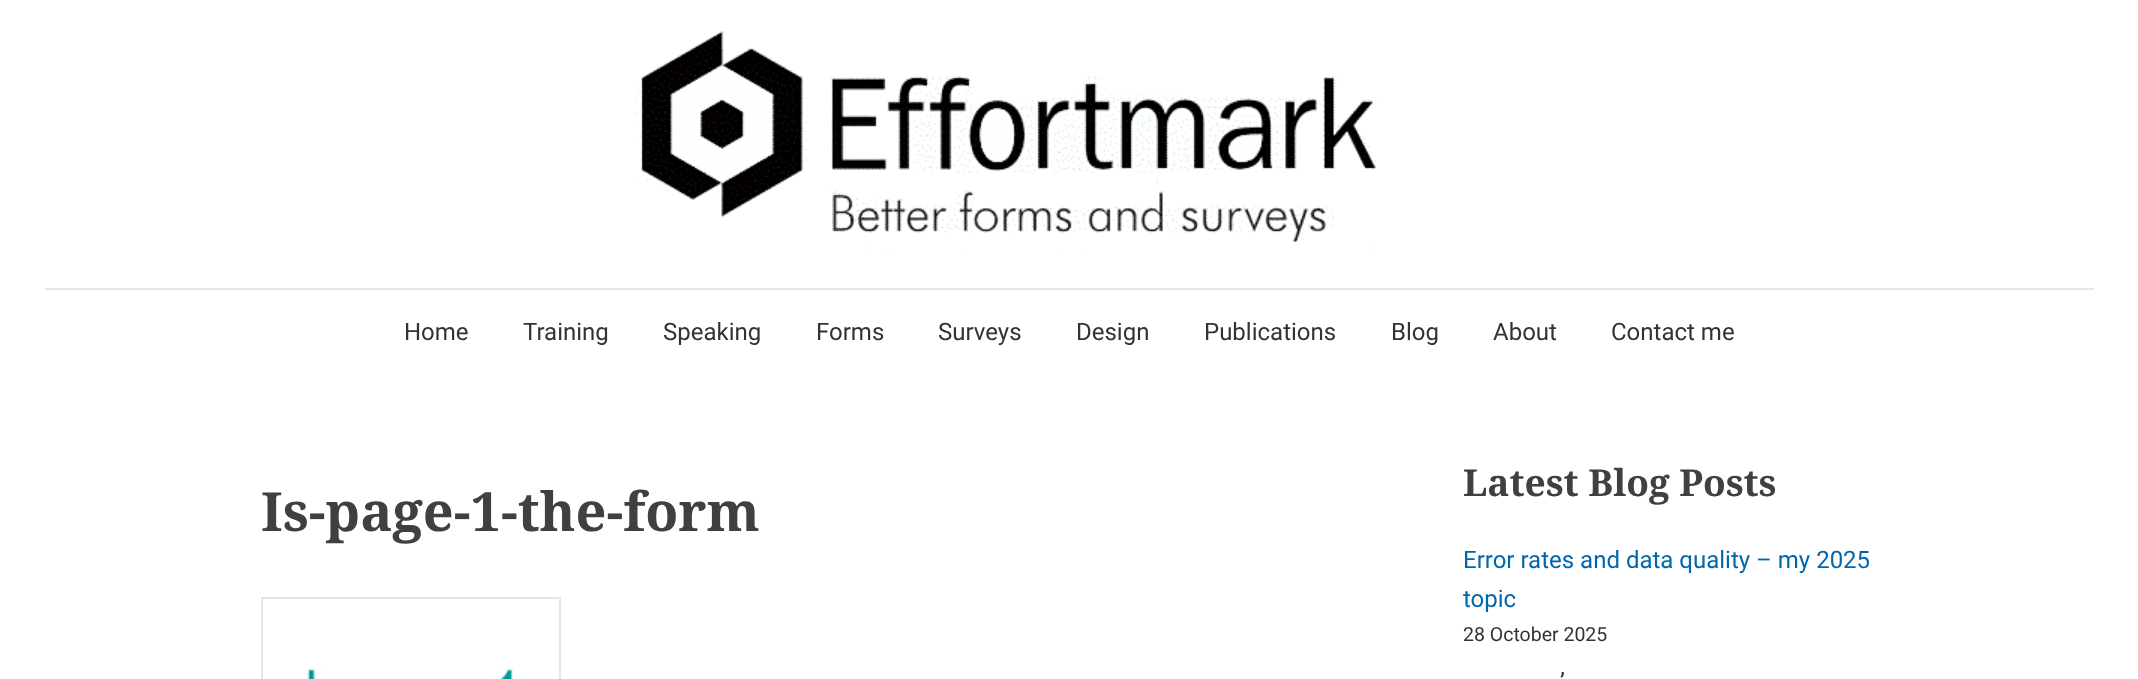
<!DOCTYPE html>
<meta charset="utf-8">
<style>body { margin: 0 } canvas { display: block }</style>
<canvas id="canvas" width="2138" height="679"></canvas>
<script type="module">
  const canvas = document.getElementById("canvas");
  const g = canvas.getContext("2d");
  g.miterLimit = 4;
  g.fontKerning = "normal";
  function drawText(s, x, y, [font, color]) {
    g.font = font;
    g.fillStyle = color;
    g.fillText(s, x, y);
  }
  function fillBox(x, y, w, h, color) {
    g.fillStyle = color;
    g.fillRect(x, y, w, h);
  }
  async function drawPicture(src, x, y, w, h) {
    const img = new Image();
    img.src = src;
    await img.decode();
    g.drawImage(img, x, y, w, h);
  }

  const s1 = ["24px Roboto", "#333333"];
  const s2 = ["bold 54px Noto Serif", "#404040"];
  const s3 = ["bold 37.1px Noto Serif", "#404040"];
  const s4 = ["24px Roboto", "#0067AC"];
  const s5 = ["19.5px Roboto", "#333333"];

  fillBox(0, 0, 2138, 679, "#FFFFFF");
  await drawPicture("pic1.png", 634, 31, 743, 218);
  fillBox(45, 288, 2049, 2, "#E6E6E6");
  drawText("Home", 404, 340, s1);
  drawText("Training", 523, 340, s1);
  drawText("Speaking", 663, 340, s1);
  drawText("Forms", 816, 340, s1);
  drawText("Surveys", 938, 340, s1);
  drawText("Design", 1076, 340, s1);
  drawText("Publications", 1204, 340, s1);
  drawText("Blog", 1391, 340, s1);
  drawText("About", 1493, 340, s1);
  drawText("Contact me", 1611, 340, s1);
  drawText("Is-page-1-the-form", 261, 531, s2);
  g.strokeStyle = "#E6E6E6";
  g.lineWidth = 2;
  g.strokeRect(262, 598, 298, 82);
  await drawPicture("pic2.png", 307, 669, 206, 10);
  drawText("Latest Blog Posts", 1463, 496, s3);
  drawText("Error rates and data quality – my 2025", 1463, 568, s4);
  drawText("topic", 1463, 607, s4);
  drawText("28 October 2025", 1463, 641, s5);
  drawText("’", 1560, 690, s1);
</script>
